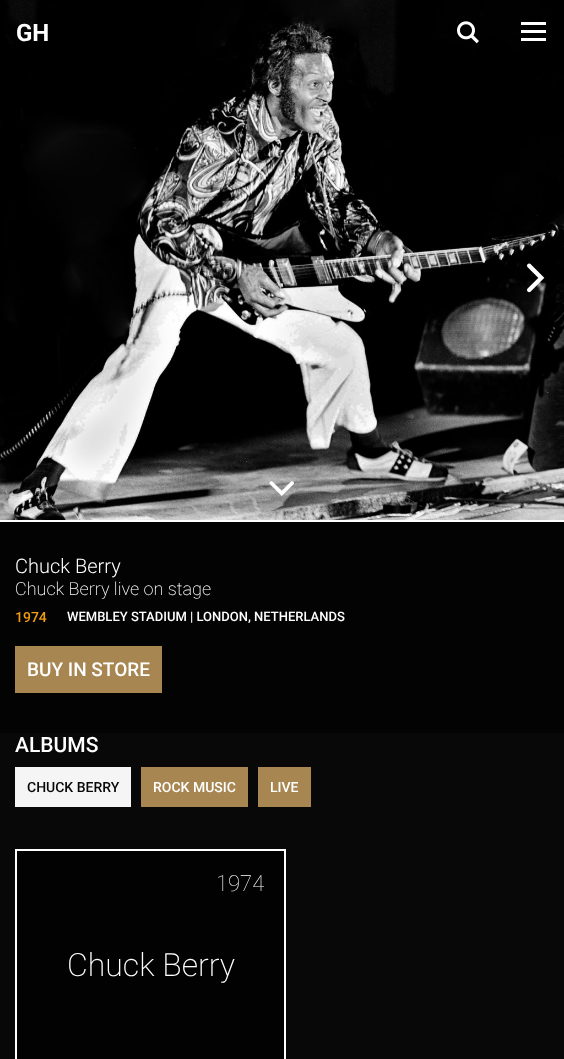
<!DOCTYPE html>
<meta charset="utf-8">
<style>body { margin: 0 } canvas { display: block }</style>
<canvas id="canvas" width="564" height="1059"></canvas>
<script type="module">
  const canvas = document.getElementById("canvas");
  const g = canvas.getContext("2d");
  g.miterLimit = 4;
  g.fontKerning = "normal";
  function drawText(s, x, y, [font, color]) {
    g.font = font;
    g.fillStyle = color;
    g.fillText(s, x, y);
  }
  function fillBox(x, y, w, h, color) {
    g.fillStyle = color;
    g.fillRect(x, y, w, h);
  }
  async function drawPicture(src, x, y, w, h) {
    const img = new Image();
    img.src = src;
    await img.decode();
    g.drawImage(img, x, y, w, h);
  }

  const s1 = ["bold 24px Roboto", "#FFFFFF"];
  const s2 = ["300 20px Roboto", "#FFFFFF"];
  const s3 = ["200 18px Roboto", "#FFFFFF"];
  const s4 = ["500 14px Roboto", "#F39C12"];
  const s5 = ["500 13px Roboto", "#FFFFFF"];
  const s6 = ["500 19px Roboto", "#FFFFFF"];
  const s7 = ["500 21px Roboto", "#FFFFFF"];
  const s8 = ["500 14px Roboto", "#080808"];
  const s9 = ["500 14px Roboto", "#FFFFFF"];
  const s10 = ["100 22px Roboto", "#FFFFFF"];
  const s11 = ["200 32px Roboto", "#FFFFFF"];

  fillBox(0, 0, 564, 1059, "#080808");
  await drawPicture("pic2.png", 0, 0, 564, 520);
  g.letterSpacing = "-3px";
  drawText("G H", 16, 41, s1);
  await drawPicture("pic1.png", 457, 21, 22, 23);
  fillBox(521, 30, 25, 3, "#FFFFFF");
  fillBox(521, 22, 25, 3, "#FFFFFF");
  fillBox(521, 38, 25, 3, "#FFFFFF");
  fillBox(0, 520, 564, 2, "#FFFFFF");
  await drawPicture("pic3.png", 269, 481, 25, 15);
  await drawPicture("pic4.png", 527, 263, 18, 30);
  fillBox(0, 522, 564, 211, "#030303");
  g.letterSpacing = "0px";
  drawText("Chuck Berry", 15, 573, s2);
  drawText("Chuck Berry live on stage", 15, 595, s3);
  drawText("1974", 15, 622, s4);
  drawText("WEMBLEY STADIUM | LONDON, NETHERLANDS", 67, 621, s5);
  fillBox(15, 646, 147, 47, "#A78652");
  drawText("BUY IN STORE", 27, 676, s6);
  drawText("ALBUMS", 15, 752, s7);
  fillBox(15, 767, 116, 40, "#F5F5F5");
  drawText("CHUCK BERRY", 27, 792, s8);
  fillBox(141, 767, 107, 40, "#A78652");
  drawText("ROCK MUSIC", 153, 792, s9);
  fillBox(258, 767, 53, 40, "#A78652");
  drawText("LIVE", 270, 792, s9);
  g.fillStyle = "#020202";
  g.beginPath();
  g.rect(16, 850, 269, 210);
  g.fill();
  g.strokeStyle = "#FFFFFF";
  g.lineWidth = 2;
  g.stroke();
  drawText("1974", 216, 891, s10);
  drawText("Chuck Berry", 67, 976, s11);
</script>
